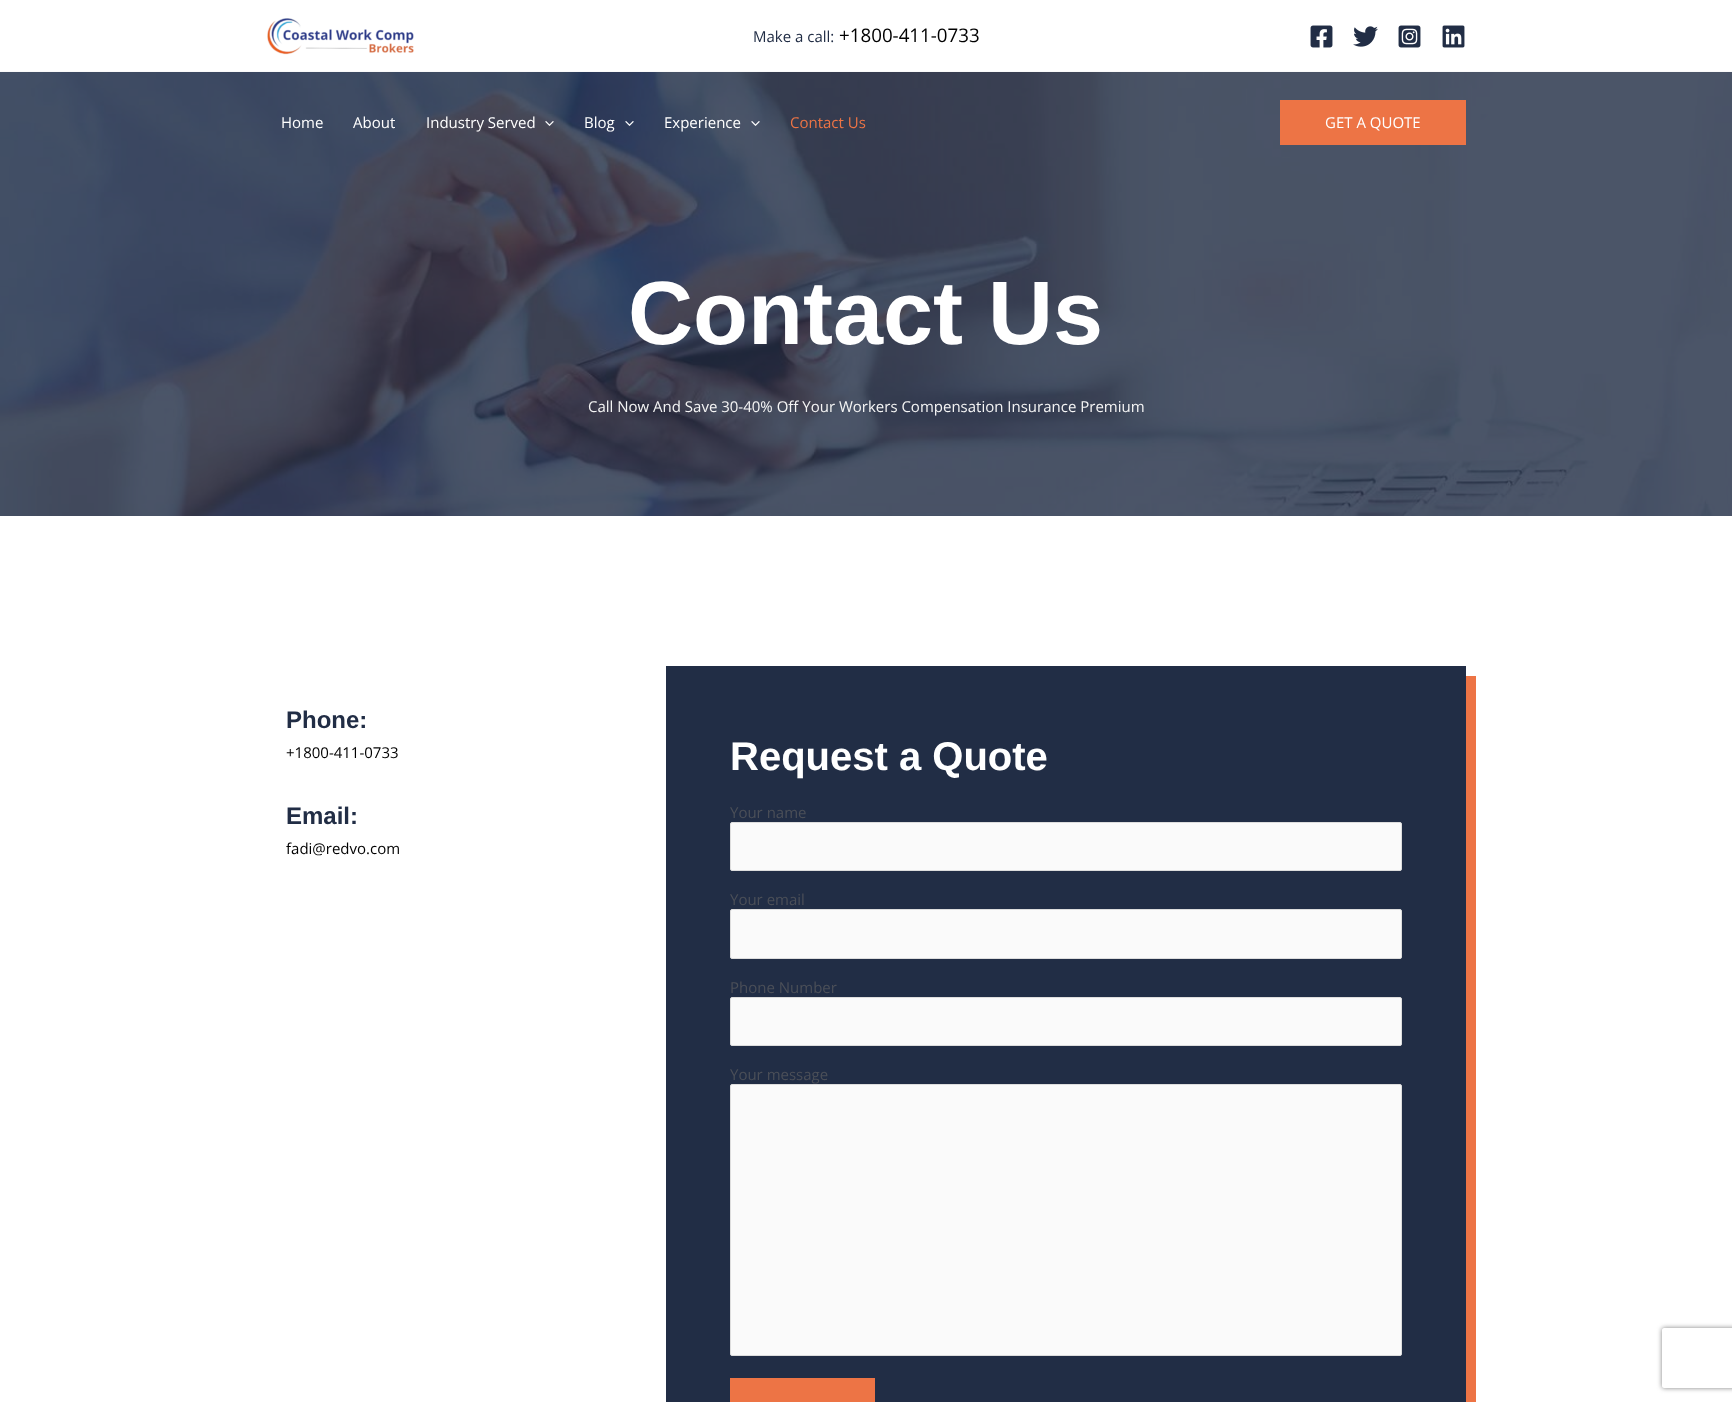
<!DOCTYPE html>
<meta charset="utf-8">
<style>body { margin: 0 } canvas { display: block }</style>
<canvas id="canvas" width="1732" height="1402"></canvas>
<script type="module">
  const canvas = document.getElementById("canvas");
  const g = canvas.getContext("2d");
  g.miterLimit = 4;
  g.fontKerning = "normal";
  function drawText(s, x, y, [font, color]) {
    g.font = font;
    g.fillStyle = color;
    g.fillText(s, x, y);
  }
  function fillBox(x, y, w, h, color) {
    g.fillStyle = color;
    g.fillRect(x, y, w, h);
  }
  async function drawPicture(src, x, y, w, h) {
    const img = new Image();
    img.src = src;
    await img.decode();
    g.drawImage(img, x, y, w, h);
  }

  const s1 = ["15px Open Sans", "#212D45"];
  const s2 = ["18.75px Open Sans", "#000000"];
  const s3 = ["15px Open Sans", "#FFFFFF"];
  const s4 = ["15px Open Sans", "#ED7445"];
  const s5 = ["bold 90px Liberation Sans", "#FFFFFF"];
  const s6 = ["15px Open Sans", "#F5F5F5"];
  const s7 = ["bold 24px Liberation Sans", "#212D45"];
  const s8 = ["15px Open Sans", "#000000"];
  const s9 = ["bold 40px Liberation Sans", "#FFFFFF"];
  const s10 = ["15px Open Sans", "#4B4F58"];

  fillBox(0, 0, 1732, 1402, "#FFFFFF");
  fillBox(0, 71, 1732, 1, "#FAFAFA");
  await drawPicture("pic1.png", 267, 18, 147, 37);
  drawText("Make a call:", 753, 42, s1);
  drawText("+1800-411-0733", 839, 42, s2);
  await drawPicture("pic2.png", 1310, 25, 23, 23);
  await drawPicture("pic3.png", 1353, 26, 25, 21);
  await drawPicture("pic4.png", 1398, 25, 23, 23);
  await drawPicture("pic5.png", 1442, 25, 23, 23);
  await drawPicture("pic9.png", 0, 72, 1732, 444);
  drawText("Home", 281, 128, s3);
  drawText("About", 353, 128, s3);
  drawText("Industry Served", 426, 128, s3);
  await drawPicture("pic6.png", 545, 121, 9, 5);
  drawText("Blog", 584, 128, s3);
  await drawPicture("pic7.png", 625, 121, 9, 5);
  drawText("Experience", 664, 128, s3);
  await drawPicture("pic8.png", 751, 121, 9, 5);
  drawText("Contact Us", 790, 128, s4);
  fillBox(1280, 100, 186, 45, "#ED7445");
  drawText("GET A QUOTE", 1325, 128, s3);
  drawText("Contact Us", 628, 344, s5);
  drawText("Call Now And Save 30-40% Off Your Workers Compensation Insurance Premium", 588, 412, s6);
  drawText("Phone:", 286, 728, s7);
  drawText("+1800-411-0733", 286, 758, s8);
  drawText("Email:", 286, 824, s7);
  drawText("fadi@redvo.com", 286, 854, s8);
  g.fillStyle = "#ED7445";
  g.beginPath();
  g.moveTo(676, 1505);
  g.lineTo(676, 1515);
  g.lineTo(1476, 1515);
  g.lineTo(1476, 676);
  g.lineTo(1466, 676);
  g.lineTo(1466, 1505);
  g.closePath();
  g.fill();
  fillBox(666, 666, 800, 736, "#212D45");
  drawText("Request a Quote", 730, 770, s9);
  drawText("Your name", 730, 818, s10);
  g.fillStyle = "#FAFAFA";
  g.beginPath();
  g.roundRect(730.5, 822.5, 671, 48, 1.5);
  g.fill();
  g.strokeStyle = "#DDDDDD";
  g.stroke();
  drawText("Your email", 730, 905, s10);
  g.fillStyle = "#FAFAFA";
  g.beginPath();
  g.roundRect(730.5, 909.5, 671, 49, 1.5);
  g.fill();
  g.stroke();
  drawText("Phone Number", 730, 993, s10);
  g.fillStyle = "#FAFAFA";
  g.beginPath();
  g.roundRect(730.5, 997.5, 671, 48, 1.5);
  g.fill();
  g.stroke();
  drawText("Your message", 730, 1080, s10);
  g.fillStyle = "#FAFAFA";
  g.beginPath();
  g.roundRect(730.5, 1084.5, 671, 271, 1.5);
  g.fill();
  g.stroke();
  fillBox(730, 1378, 145, 24, "#ED7445");
  g.save();
  g.beginPath();
  g.moveTo(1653, 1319);
  g.lineTo(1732, 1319);
  g.lineTo(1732, 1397);
  g.lineTo(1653, 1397);
  g.closePath();
  g.moveTo(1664, 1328);
  g.lineTo(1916, 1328);
  g.bezierCurveTo(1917, 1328, 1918, 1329, 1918, 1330);
  g.lineTo(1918, 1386);
  g.bezierCurveTo(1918, 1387, 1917, 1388, 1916, 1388);
  g.lineTo(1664, 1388);
  g.bezierCurveTo(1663, 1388, 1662, 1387, 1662, 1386);
  g.lineTo(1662, 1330);
  g.bezierCurveTo(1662, 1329, 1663, 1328, 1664, 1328);
  g.closePath();
  g.clip("evenodd");
  g.fillStyle = "#808080";
  g.filter = "blur(2.5px)";
  g.beginPath();
  g.roundRect(1662, 1328, 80, 60, 2);
  g.fill();
  g.filter = "none";
  g.restore();
</script>
